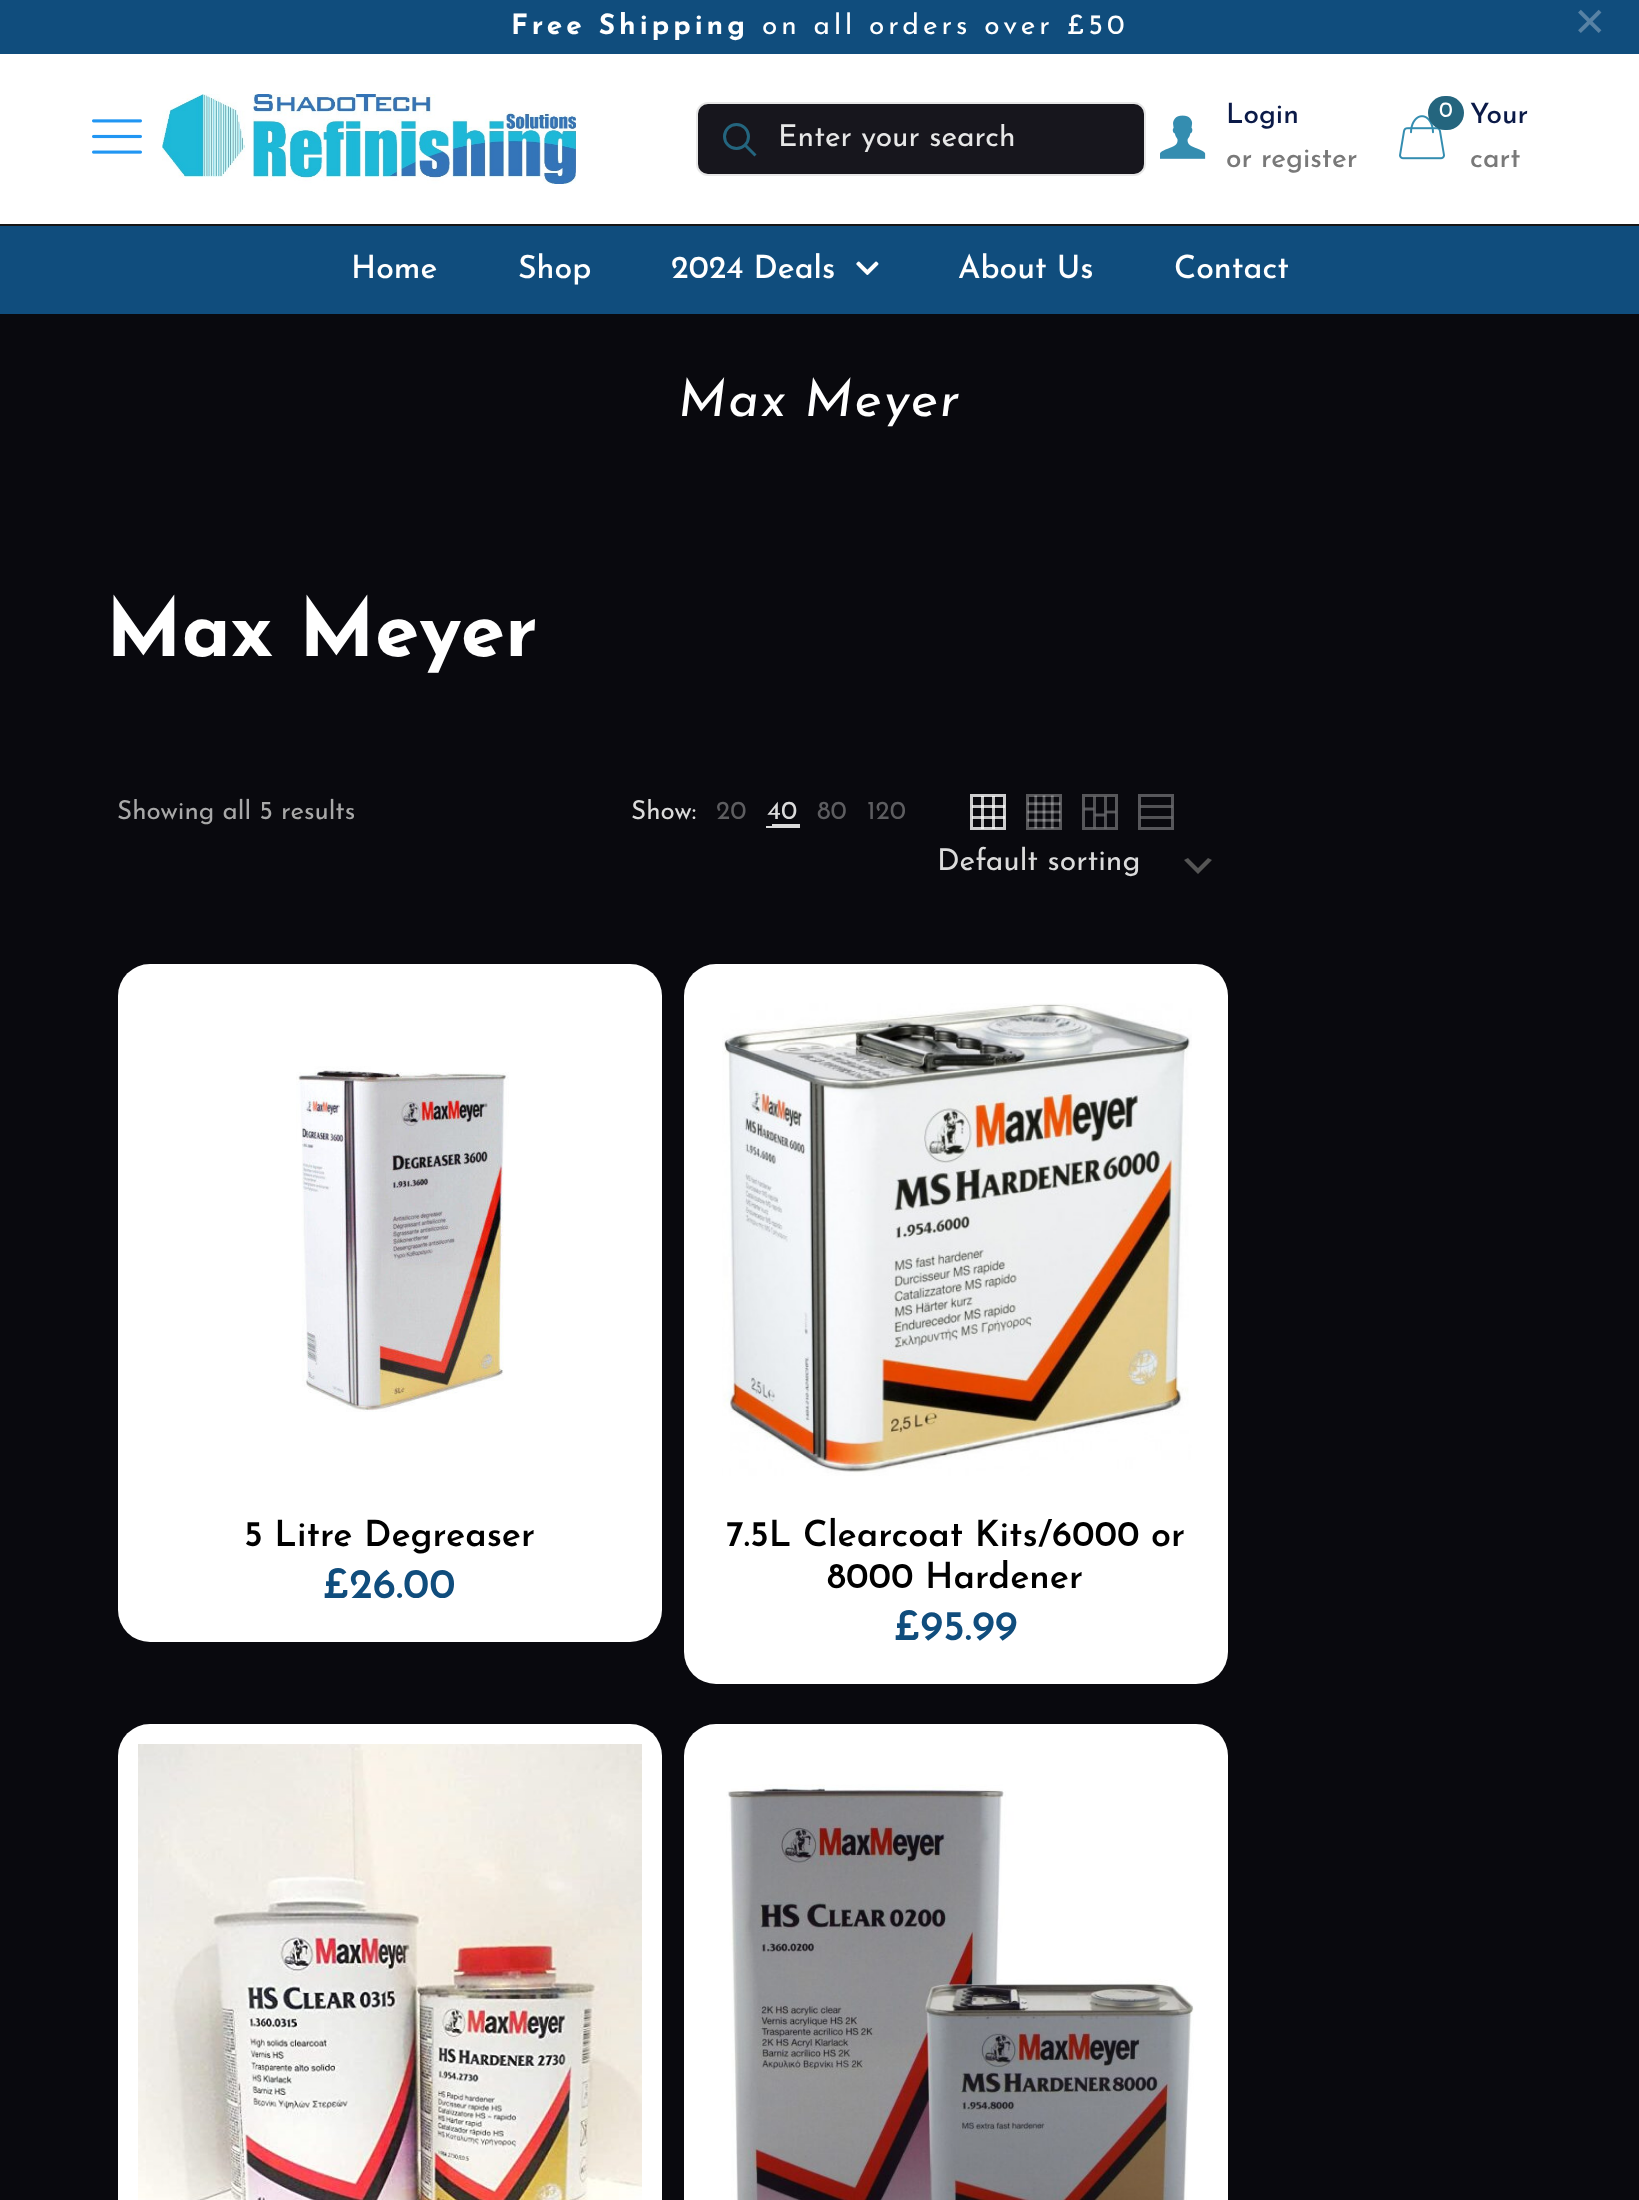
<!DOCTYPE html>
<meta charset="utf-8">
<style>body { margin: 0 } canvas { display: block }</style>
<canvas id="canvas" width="1639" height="2200"></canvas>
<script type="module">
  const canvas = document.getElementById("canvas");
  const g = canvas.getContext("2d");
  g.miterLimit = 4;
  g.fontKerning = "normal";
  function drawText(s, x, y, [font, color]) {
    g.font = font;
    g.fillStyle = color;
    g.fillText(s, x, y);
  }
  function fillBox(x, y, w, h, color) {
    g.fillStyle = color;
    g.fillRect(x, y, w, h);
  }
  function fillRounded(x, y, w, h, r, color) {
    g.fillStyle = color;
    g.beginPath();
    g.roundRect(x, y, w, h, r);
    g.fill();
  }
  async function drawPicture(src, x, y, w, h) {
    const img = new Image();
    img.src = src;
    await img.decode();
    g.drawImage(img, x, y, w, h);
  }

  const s1 = ["bold 28px Josefin Sans", "#FFFFFF"];
  const s2 = ["28px Josefin Sans", "#FFFFFF"];
  const s3 = ["40px DejaVu Sans", "#5882A4"];
  const s4 = ["30px Josefin Sans", "#E7E7E7"];
  const s5 = ["500 28px Josefin Sans", "#0B1A48"];
  const s6 = ["500 28px Josefin Sans", "#797979"];
  const s7 = ["22px Josefin Sans", "#FFFFFF"];
  const s8 = ["500 32px Josefin Sans", "#FFFFFF"];
  const s9 = ["italic 52px Josefin Sans", "#FFFFFF"];
  const s10 = ["bold 80px Josefin Sans", "#FFFFFF"];
  const s11 = ["26px Josefin Sans", "#A8A8A8"];
  const s12 = ["26px Josefin Sans", "#DBDBDB"];
  const s13 = ["26px Josefin Sans", "#5D5D60"];
  const s14 = ["30px Josefin Sans", "#DBDBDB"];
  const s15 = ["600 36px Josefin Sans", "#000000"];
  const s16 = ["600 42px Josefin Sans", "#104D7D"];

  fillBox(0, 0, 1639, 2200, "#09090E");
  fillBox(0, 0, 1639, 54, "#104D7D");
  g.letterSpacing = "4px";
  drawText("Free Shipping", 511, 34, s1);
  drawText("on all orders over £50", 762, 34, s2);
  g.letterSpacing = "0px";
  drawText("✕", 1573, 36, s3);
  fillBox(0, 54, 1639, 170, "#FFFFFF");
  await drawPicture("pic1.png", 92, 119, 50, 35);
  await drawPicture("pic2.png", 162, 94, 414, 90);
  g.fillStyle = "#17161D";
  g.beginPath();
  g.roundRect(697, 103, 448, 72, 11);
  g.fill();
  g.strokeStyle = "#E7E7E7";
  g.lineWidth = 2;
  g.stroke();
  g.beginPath();
  g.arc(736.5, 136.5, 12, 0, Math.PI * 2);
  g.strokeStyle = "#24657E";
  g.lineWidth = 3;
  g.stroke();
  g.beginPath();
  g.moveTo(745, 145);
  g.lineTo(755.5, 155.5);
  g.stroke();
  g.save();
  g.beginPath();
  g.rect(778, 124, 346, 30);
  g.clip();
  drawText("Enter your search", 778, 146, s4);
  g.restore();
  await drawPicture("pic3.png", 1160, 115, 46, 44);
  drawText("Login", 1226, 123, s5);
  drawText("or register", 1226, 167, s6);
  await drawPicture("pic4.png", 1399, 115, 46, 45);
  fillRounded(1428, 96, 36, 34, 17, "#24657E");
  drawText("0", 1439, 117, s7);
  drawText("Your", 1470, 123, s5);
  drawText("cart", 1470, 167, s6);
  fillBox(0, 224, 1639, 2, "#171616");
  fillBox(0, 226, 1639, 88, "#104D7D");
  drawText("Home", 351, 278, s8);
  drawText("Shop", 518, 278, s8);
  drawText("2024 Deals", 671, 278, s8);
  await drawPicture("pic5.png", 856, 261, 23, 14);
  drawText("About Us", 958, 278, s8);
  drawText("Contact", 1174, 278, s8);
  g.letterSpacing = "2px";
  drawText("Max Meyer", 678, 416, s9);
  g.letterSpacing = "0px";
  drawText("Max Meyer", 106, 656, s10);
  drawText("Showing all 5 results", 117, 819, s11);
  drawText("Show:", 631, 819, s12);
  drawText("20", 716, 819, s13);
  drawText("40", 767, 819, s12);
  fillBox(772, 824, 28, 2, "#DBDBDB");
  fillBox(766, 826, 34, 2, "#DBDBDB");
  drawText("80", 817, 819, s13);
  drawText("120", 867, 819, s13);
  fillBox(981, 796, 3, 33, "#C1C1C2");
  fillBox(992, 796, 3, 33, "#C1C1C2");
  g.strokeStyle = "rgba(255, 255, 255, 0.8)";
  g.strokeRect(971.5, 795.5, 33, 33);
  fillBox(972, 805, 33, 3, "rgba(255, 255, 255, 0.75)");
  fillBox(972, 816, 33, 3, "rgba(255, 255, 255, 0.75)");
  await drawPicture("pic6.png", 1026, 794, 36, 36);
  g.beginPath();
  g.moveTo(1083.5, 809);
  g.lineTo(1094.5, 809);
  g.moveTo(1094.5, 815);
  g.lineTo(1105.5, 815);
  g.strokeStyle = "#57575B";
  g.lineWidth = 2.8;
  g.stroke();
  g.strokeStyle = "rgba(107, 107, 110, 0.8)";
  g.lineWidth = 3;
  g.strokeRect(1083.5, 795.5, 33, 33);
  g.beginPath();
  g.moveTo(1105.5, 812);
  g.lineTo(1116.5, 812);
  g.lineWidth = 2.8;
  g.stroke();
  fillBox(1093, 796, 3, 33, "rgba(107, 107, 110, 0.75)");
  fillBox(1104, 796, 3, 33, "rgba(107, 107, 110, 0.75)");
  g.strokeStyle = "#57575B";
  g.lineWidth = 3;
  g.strokeRect(1139.5, 795.5, 33, 33);
  fillBox(1140, 805, 33, 3, "rgba(107, 107, 110, 0.75)");
  fillBox(1140, 816, 33, 3, "rgba(107, 107, 110, 0.75)");
  g.fillStyle = "#555555";
  g.beginPath();
  g.moveTo(1188, 858);
  g.lineTo(1198, 868);
  g.lineTo(1208, 858);
  g.lineTo(1212, 860);
  g.lineTo(1198, 874);
  g.lineTo(1184, 860);
  g.closePath();
  g.fill();
  drawText("Default sorting", 937, 870, s14);
  fillRounded(118, 964, 544, 678, 32, "#FFFFFF");
  await drawPicture("pic7.png", 296, 1066, 213, 346);
  drawText("5 Litre Degreaser", 244, 1546, s15);
  drawText("£26.00", 322, 1598, s16);
  fillRounded(684, 964, 544, 720, 32, "#FFFFFF");
  await drawPicture("pic8.png", 722, 1003, 470, 473);
  drawText("7.5L Clearcoat Kits/6000 or", 726, 1546, s15);
  drawText("8000 Hardener", 827, 1588, s15);
  drawText("£95.99", 893, 1640, s16);
  fillRounded(118, 1724, 544, 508, 32, "#FFFFFF");
  await drawPicture("pic9.png", 138, 1744, 504, 456);
  fillRounded(684, 1724, 544, 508, 32, "#FFFFFF");
  await drawPicture("pic10.png", 726, 1784, 468, 416);
</script>
